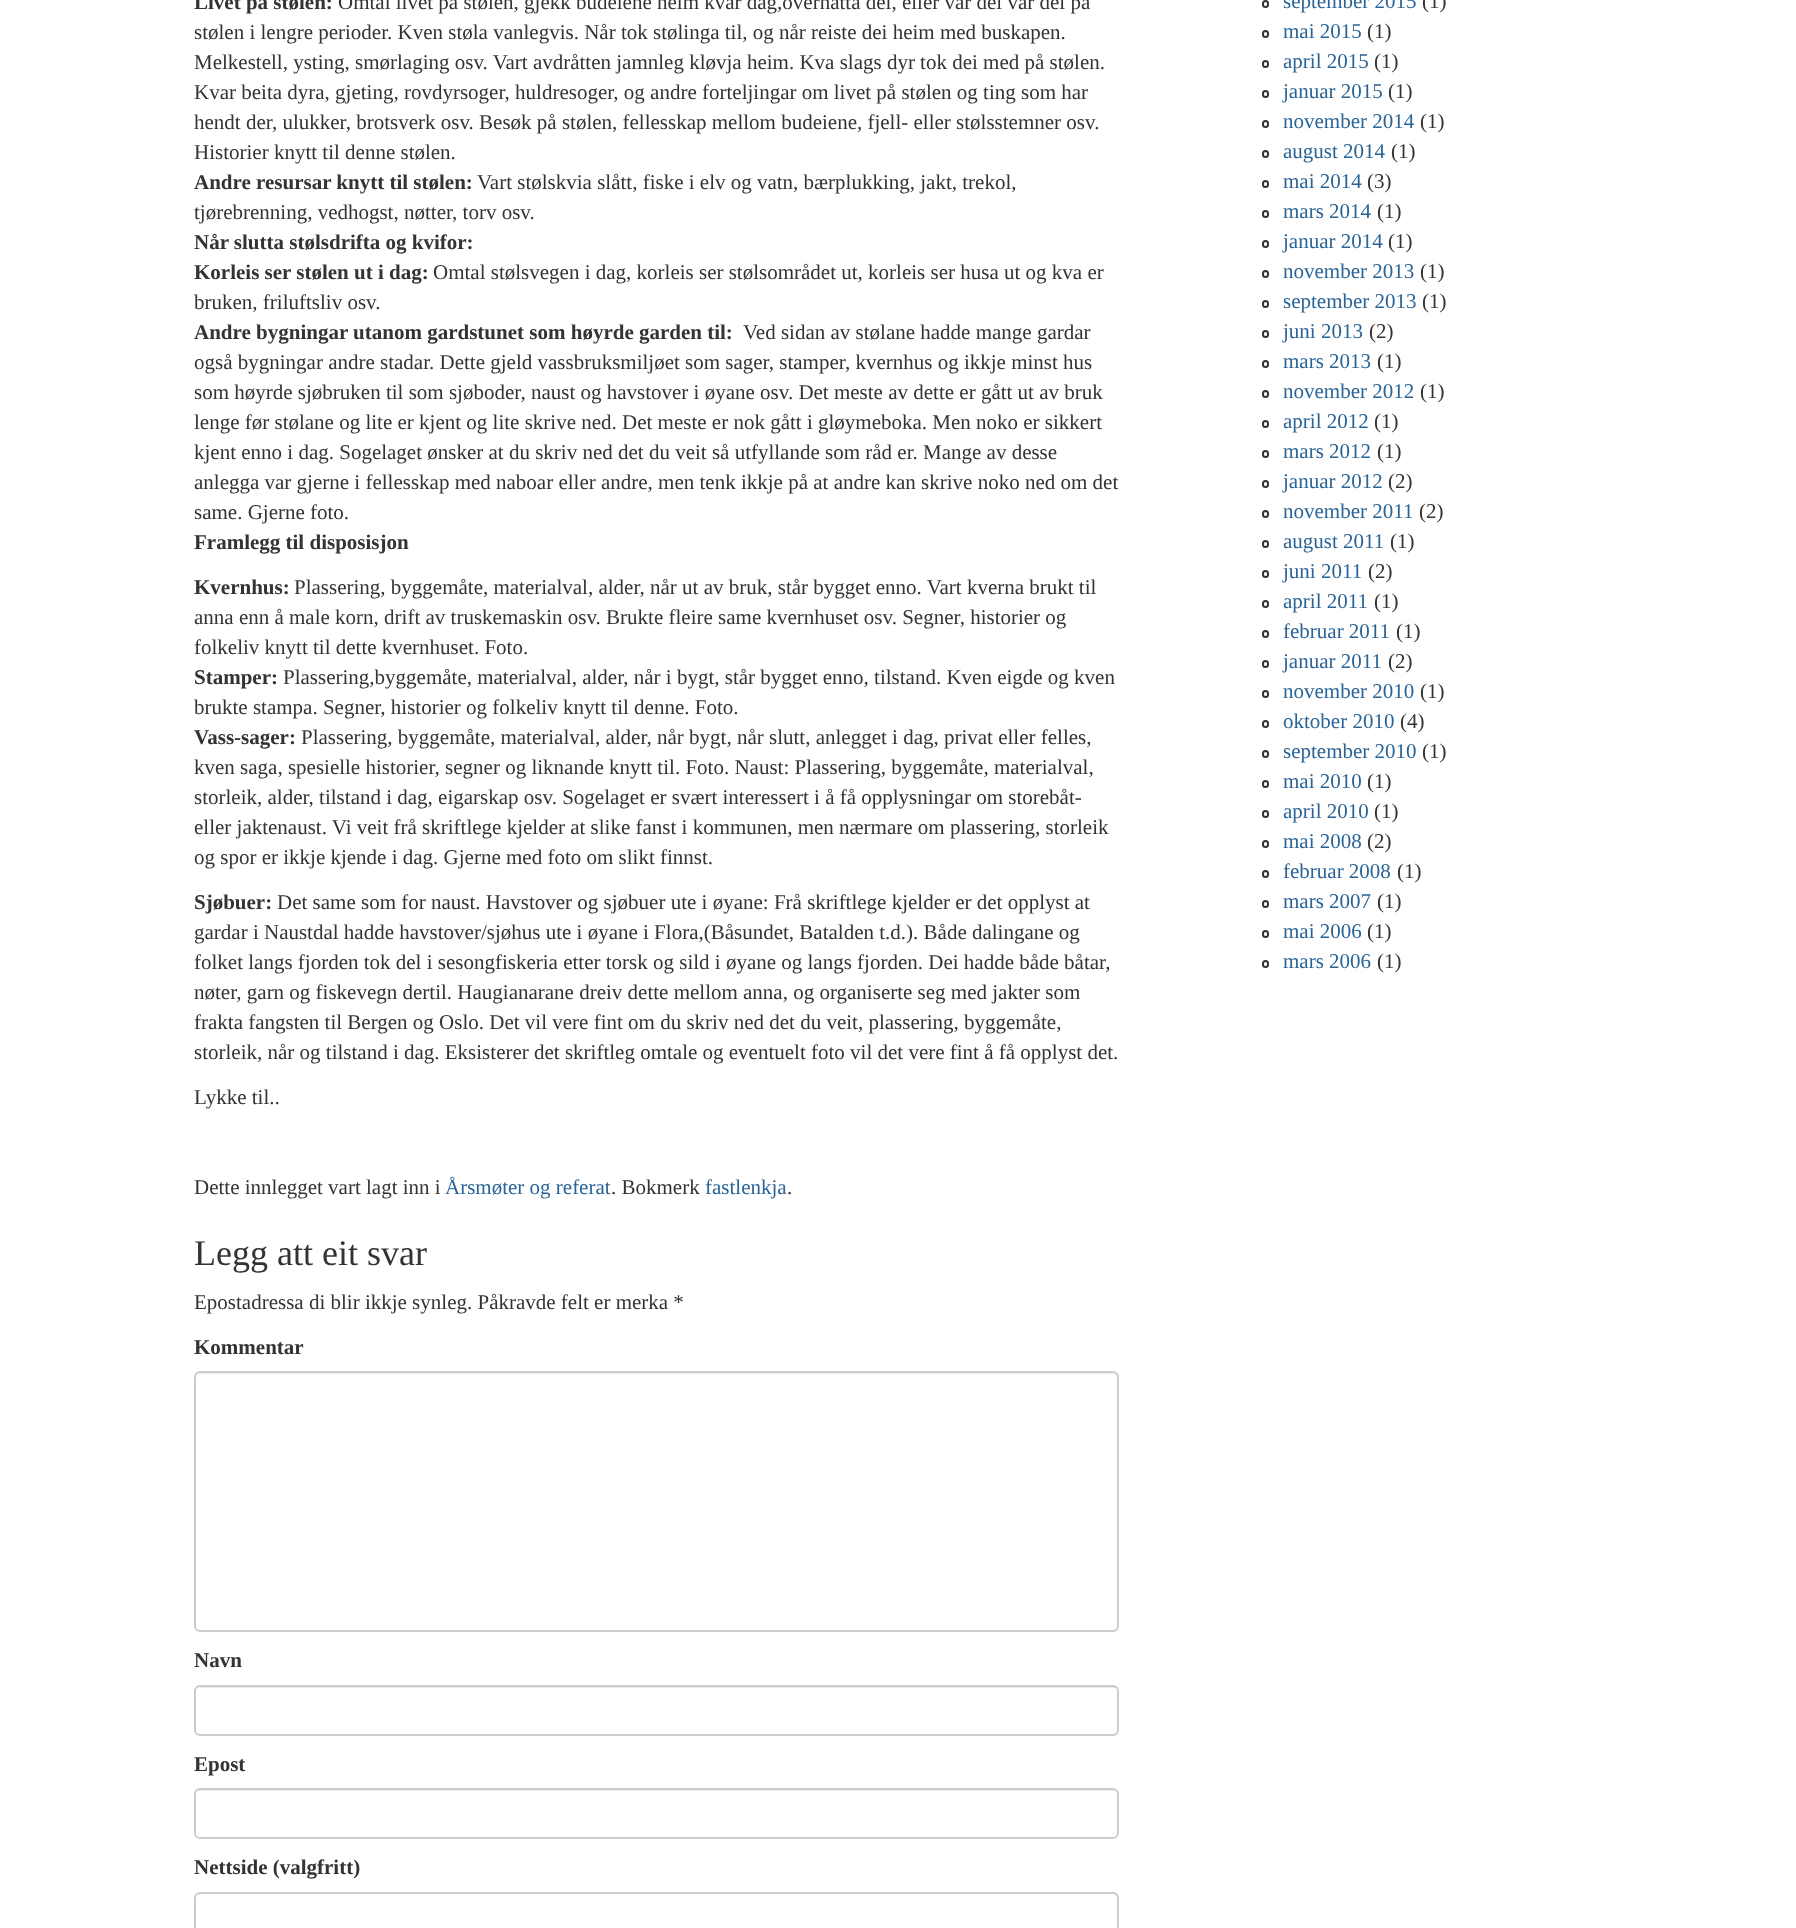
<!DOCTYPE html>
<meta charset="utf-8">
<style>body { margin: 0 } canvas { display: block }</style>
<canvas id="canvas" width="1796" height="1928"></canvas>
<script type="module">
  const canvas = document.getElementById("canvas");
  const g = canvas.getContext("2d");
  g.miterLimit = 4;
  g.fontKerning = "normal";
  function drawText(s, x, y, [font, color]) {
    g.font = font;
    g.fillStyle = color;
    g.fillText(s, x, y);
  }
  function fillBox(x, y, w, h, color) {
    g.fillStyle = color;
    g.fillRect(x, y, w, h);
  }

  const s1 = ["bold 21px Liberation Serif", "#333333"];
  const s2 = ["21px Liberation Serif", "#333333"];
  const s3 = ["21px Liberation Serif", "#2A6496"];
  const s4 = ["36px Liberation Serif", "#333333"];

  fillBox(0, 0, 1796, 1928, "#FFFFFF");
  drawText("Livet på stølen:", 194, 9, s1);
  drawText("Omtal livet på stølen, gjekk budeiene heim kvar dag,overnatta dei, eller var dei var dei på", 338, 9, s2);
  drawText("stølen i lengre perioder. Kven støla vanlegvis. Når tok stølinga til, og når reiste dei heim med buskapen.", 194, 39, s2);
  drawText("Melkestell, ysting, smørlaging osv. Vart avdråtten jamnleg kløvja heim. Kva slags dyr tok dei med på stølen.", 194, 69, s2);
  drawText("Kvar beita dyra, gjeting, rovdyrsoger, huldresoger, og andre forteljingar om livet på stølen og ting som har", 194, 99, s2);
  drawText("hendt der, ulukker, brotsverk osv. Besøk på stølen, fellesskap mellom budeiene, fjell- eller stølsstemner osv.", 194, 129, s2);
  drawText("Historier knytt til denne stølen.", 194, 159, s2);
  drawText("Andre resursar knytt til stølen:", 194, 189, s1);
  drawText("Vart stølskvia slått, fiske i elv og vatn, bærplukking, jakt, trekol,", 477, 189, s2);
  drawText("tjørebrenning, vedhogst, nøtter, torv osv.", 194, 219, s2);
  drawText("Når slutta stølsdrifta og kvifor:", 194, 249, s1);
  drawText("Korleis ser stølen ut i dag:", 194, 279, s1);
  drawText("Omtal stølsvegen i dag, korleis ser stølsområdet ut, korleis ser husa ut og kva er", 433, 279, s2);
  drawText("bruken, friluftsliv osv.", 194, 309, s2);
  drawText("Andre bygningar utanom gardstunet som høyrde garden til:", 194, 339, s1);
  drawText("Ved sidan av stølane hadde mange gardar", 743, 339, s2);
  drawText("også bygningar andre stadar. Dette gjeld vassbruksmiljøet som sager, stamper, kvernhus og ikkje minst hus", 194, 369, s2);
  drawText("som høyrde sjøbruken til som sjøboder, naust og havstover i øyane osv. Det meste av dette er gått ut av bruk", 194, 399, s2);
  drawText("lenge før stølane og lite er kjent og lite skrive ned. Det meste er nok gått i gløymeboka. Men noko er sikkert", 194, 429, s2);
  drawText("kjent enno i dag. Sogelaget ønsker at du skriv ned det du veit så utfyllande som råd er. Mange av desse", 194, 459, s2);
  drawText("anlegga var gjerne i fellesskap med naboar eller andre, men tenk ikkje på at andre kan skrive noko ned om det", 194, 489, s2);
  drawText("same. Gjerne foto.", 194, 519, s2);
  drawText("Framlegg til disposisjon", 194, 549, s1);
  drawText("Kvernhus:", 194, 594, s1);
  drawText("Plassering, byggemåte, materialval, alder, når ut av bruk, står bygget enno. Vart kverna brukt til", 294, 594, s2);
  drawText("anna enn å male korn, drift av truskemaskin osv. Brukte fleire same kvernhuset osv. Segner, historier og", 194, 624, s2);
  drawText("folkeliv knytt til dette kvernhuset. Foto.", 194, 654, s2);
  drawText("Stamper:", 194, 684, s1);
  drawText("Plassering,byggemåte, materialval, alder, når i bygt, står bygget enno, tilstand. Kven eigde og kven", 283, 684, s2);
  drawText("brukte stampa. Segner, historier og folkeliv knytt til denne. Foto.", 194, 714, s2);
  drawText("Vass-sager:", 194, 744, s1);
  drawText("Plassering, byggemåte, materialval, alder, når bygt, når slutt, anlegget i dag, privat eller felles,", 301, 744, s2);
  drawText("kven saga, spesielle historier, segner og liknande knytt til. Foto. Naust: Plassering, byggemåte, materialval,", 194, 774, s2);
  drawText("storleik, alder, tilstand i dag, eigarskap osv. Sogelaget er svært interessert i å få opplysningar om storebåt-", 194, 804, s2);
  drawText("eller jaktenaust. Vi veit frå skriftlege kjelder at slike fanst i kommunen, men nærmare om plassering, storleik", 194, 834, s2);
  drawText("og spor er ikkje kjende i dag. Gjerne med foto om slikt finnst.", 194, 864, s2);
  drawText("Sjøbuer:", 194, 909, s1);
  drawText("Det same som for naust. Havstover og sjøbuer ute i øyane: Frå skriftlege kjelder er det opplyst at", 277, 909, s2);
  drawText("gardar i Naustdal hadde havstover/sjøhus ute i øyane i Flora,(Båsundet, Batalden t.d.). Både dalingane og", 194, 939, s2);
  drawText("folket langs fjorden tok del i sesongfiskeria etter torsk og sild i øyane og langs fjorden. Dei hadde både båtar,", 194, 969, s2);
  drawText("nøter, garn og fiskevegn dertil. Haugianarane dreiv dette mellom anna, og organiserte seg med jakter som", 194, 999, s2);
  drawText("frakta fangsten til Bergen og Oslo. Det vil vere fint om du skriv ned det du veit, plassering, byggemåte,", 194, 1029, s2);
  drawText("storleik, når og tilstand i dag. Eksisterer det skriftleg omtale og eventuelt foto vil det vere fint å få opplyst det.", 194, 1059, s2);
  drawText("Lykke til..", 194, 1104, s2);
  drawText("Dette innlegget vart lagt inn i", 194, 1194, s2);
  drawText("Årsmøter og referat", 445, 1194, s3);
  drawText(". Bokmerk", 611, 1194, s2);
  drawText("fastlenkja", 705, 1194, s3);
  drawText(".", 787, 1194, s2);
  drawText("Legg att eit svar", 194, 1265, s4);
  drawText("Epostadressa di blir ikkje synleg. Påkravde felt er merka *", 194, 1309, s2);
  drawText("Kommentar", 194, 1354, s1);
  g.fillStyle = "#ECECEC";
  g.beginPath();
  g.moveTo(200, 1374);
  g.lineTo(1113, 1374);
  g.bezierCurveTo(1115, 1374, 1118, 1376, 1118, 1378);
  g.bezierCurveTo(1118, 1375, 1116, 1373, 1113, 1373);
  g.lineTo(200, 1373);
  g.bezierCurveTo(197, 1373, 195, 1375, 195, 1378);
  g.bezierCurveTo(195, 1376, 197, 1374, 200, 1374);
  g.closePath();
  g.fill();
  g.beginPath();
  g.roundRect(195, 1372, 923, 259, 5);
  g.strokeStyle = "#CCCCCC";
  g.lineWidth = 2;
  g.stroke();
  drawText("Navn", 194, 1667, s1);
  g.fillStyle = "#ECECEC";
  g.beginPath();
  g.moveTo(200, 1688);
  g.lineTo(1113, 1688);
  g.bezierCurveTo(1115, 1688, 1118, 1690, 1118, 1692);
  g.bezierCurveTo(1118, 1689, 1116, 1686, 1113, 1686);
  g.lineTo(200, 1686);
  g.bezierCurveTo(197, 1686, 195, 1689, 195, 1692);
  g.bezierCurveTo(195, 1690, 197, 1688, 200, 1688);
  g.closePath();
  g.fill();
  g.beginPath();
  g.roundRect(195, 1686, 923, 49, 5);
  g.stroke();
  drawText("Epost", 194, 1771, s1);
  g.fillStyle = "#ECECEC";
  g.beginPath();
  g.moveTo(200, 1791);
  g.lineTo(1113, 1791);
  g.bezierCurveTo(1115, 1791, 1118, 1793, 1118, 1796);
  g.bezierCurveTo(1118, 1793, 1116, 1790, 1113, 1790);
  g.lineTo(200, 1790);
  g.bezierCurveTo(197, 1790, 195, 1793, 195, 1796);
  g.bezierCurveTo(195, 1793, 197, 1791, 200, 1791);
  g.closePath();
  g.fill();
  g.beginPath();
  g.roundRect(195, 1789, 923, 49, 5);
  g.stroke();
  drawText("Nettside (valgfritt)", 194, 1874, s1);
  g.fillStyle = "#ECECEC";
  g.beginPath();
  g.moveTo(200, 1894);
  g.lineTo(1113, 1894);
  g.bezierCurveTo(1115, 1894, 1118, 1897, 1118, 1899);
  g.bezierCurveTo(1118, 1896, 1116, 1893, 1113, 1893);
  g.lineTo(200, 1893);
  g.bezierCurveTo(197, 1893, 195, 1896, 195, 1899);
  g.bezierCurveTo(195, 1897, 197, 1894, 200, 1894);
  g.closePath();
  g.fill();
  g.beginPath();
  g.roundRect(195, 1893, 923, 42, 5);
  g.stroke();
  g.beginPath();
  g.roundRect(1263, 1, 5, 6, 2.5);
  g.strokeStyle = "#333333";
  g.stroke();
  drawText("september 2015", 1283, 8, s3);
  drawText("(1)", 1422, 8, s2);
  g.beginPath();
  g.roundRect(1263, 31, 5, 6, 2.5);
  g.stroke();
  drawText("mai 2015", 1283, 38, s3);
  drawText("(1)", 1367, 38, s2);
  g.beginPath();
  g.roundRect(1263, 61, 5, 6, 2.5);
  g.stroke();
  drawText("april 2015", 1283, 68, s3);
  drawText("(1)", 1374, 68, s2);
  g.beginPath();
  g.roundRect(1263, 91, 5, 6, 2.5);
  g.stroke();
  drawText("januar 2015", 1283, 98, s3);
  drawText("(1)", 1388, 98, s2);
  g.beginPath();
  g.roundRect(1263, 121, 5, 6, 2.5);
  g.stroke();
  drawText("november 2014", 1283, 128, s3);
  drawText("(1)", 1420, 128, s2);
  g.beginPath();
  g.roundRect(1263, 151, 5, 6, 2.5);
  g.stroke();
  drawText("august 2014", 1283, 158, s3);
  drawText("(1)", 1391, 158, s2);
  g.beginPath();
  g.roundRect(1263, 181, 5, 6, 2.5);
  g.stroke();
  drawText("mai 2014", 1283, 188, s3);
  drawText("(3)", 1367, 188, s2);
  g.beginPath();
  g.roundRect(1263, 211, 5, 6, 2.5);
  g.stroke();
  drawText("mars 2014", 1283, 218, s3);
  drawText("(1)", 1377, 218, s2);
  g.beginPath();
  g.roundRect(1263, 241, 5, 6, 2.5);
  g.stroke();
  drawText("januar 2014", 1283, 248, s3);
  drawText("(1)", 1388, 248, s2);
  g.beginPath();
  g.roundRect(1263, 271, 5, 6, 2.5);
  g.stroke();
  drawText("november 2013", 1283, 278, s3);
  drawText("(1)", 1420, 278, s2);
  g.beginPath();
  g.roundRect(1263, 301, 5, 6, 2.5);
  g.stroke();
  drawText("september 2013", 1283, 308, s3);
  drawText("(1)", 1422, 308, s2);
  g.beginPath();
  g.roundRect(1263, 331, 5, 6, 2.5);
  g.stroke();
  drawText("juni 2013", 1283, 338, s3);
  drawText("(2)", 1369, 338, s2);
  g.beginPath();
  g.roundRect(1263, 361, 5, 6, 2.5);
  g.stroke();
  drawText("mars 2013", 1283, 368, s3);
  drawText("(1)", 1377, 368, s2);
  g.beginPath();
  g.roundRect(1263, 391, 5, 6, 2.5);
  g.stroke();
  drawText("november 2012", 1283, 398, s3);
  drawText("(1)", 1420, 398, s2);
  g.beginPath();
  g.roundRect(1263, 421, 5, 6, 2.5);
  g.stroke();
  drawText("april 2012", 1283, 428, s3);
  drawText("(1)", 1374, 428, s2);
  g.beginPath();
  g.roundRect(1263, 451, 5, 6, 2.5);
  g.stroke();
  drawText("mars 2012", 1283, 458, s3);
  drawText("(1)", 1377, 458, s2);
  g.beginPath();
  g.roundRect(1263, 481, 5, 6, 2.5);
  g.stroke();
  drawText("januar 2012", 1283, 488, s3);
  drawText("(2)", 1388, 488, s2);
  g.beginPath();
  g.roundRect(1263, 511, 5, 6, 2.5);
  g.stroke();
  drawText("november 2011", 1283, 518, s3);
  drawText("(2)", 1419, 518, s2);
  g.beginPath();
  g.roundRect(1263, 541, 5, 6, 2.5);
  g.stroke();
  drawText("august 2011", 1283, 548, s3);
  drawText("(1)", 1390, 548, s2);
  g.beginPath();
  g.roundRect(1263, 571, 5, 6, 2.5);
  g.stroke();
  drawText("juni 2011", 1283, 578, s3);
  drawText("(2)", 1368, 578, s2);
  g.beginPath();
  g.roundRect(1263, 601, 5, 6, 2.5);
  g.stroke();
  drawText("april 2011", 1283, 608, s3);
  drawText("(1)", 1374, 608, s2);
  g.beginPath();
  g.roundRect(1263, 631, 5, 6, 2.5);
  g.stroke();
  drawText("februar 2011", 1283, 638, s3);
  drawText("(1)", 1396, 638, s2);
  g.beginPath();
  g.roundRect(1263, 661, 5, 6, 2.5);
  g.stroke();
  drawText("januar 2011", 1283, 668, s3);
  drawText("(2)", 1388, 668, s2);
  g.beginPath();
  g.roundRect(1263, 691, 5, 6, 2.5);
  g.stroke();
  drawText("november 2010", 1283, 698, s3);
  drawText("(1)", 1420, 698, s2);
  g.beginPath();
  g.roundRect(1263, 721, 5, 6, 2.5);
  g.stroke();
  drawText("oktober 2010", 1283, 728, s3);
  drawText("(4)", 1400, 728, s2);
  g.beginPath();
  g.roundRect(1263, 751, 5, 6, 2.5);
  g.stroke();
  drawText("september 2010", 1283, 758, s3);
  drawText("(1)", 1422, 758, s2);
  g.beginPath();
  g.roundRect(1263, 781, 5, 6, 2.5);
  g.stroke();
  drawText("mai 2010", 1283, 788, s3);
  drawText("(1)", 1367, 788, s2);
  g.beginPath();
  g.roundRect(1263, 811, 5, 6, 2.5);
  g.stroke();
  drawText("april 2010", 1283, 818, s3);
  drawText("(1)", 1374, 818, s2);
  g.beginPath();
  g.roundRect(1263, 841, 5, 6, 2.5);
  g.stroke();
  drawText("mai 2008", 1283, 848, s3);
  drawText("(2)", 1367, 848, s2);
  g.beginPath();
  g.roundRect(1263, 871, 5, 6, 2.5);
  g.stroke();
  drawText("februar 2008", 1283, 878, s3);
  drawText("(1)", 1397, 878, s2);
  g.beginPath();
  g.roundRect(1263, 901, 5, 6, 2.5);
  g.stroke();
  drawText("mars 2007", 1283, 908, s3);
  drawText("(1)", 1377, 908, s2);
  g.beginPath();
  g.roundRect(1263, 931, 5, 6, 2.5);
  g.stroke();
  drawText("mai 2006", 1283, 938, s3);
  drawText("(1)", 1367, 938, s2);
  g.beginPath();
  g.roundRect(1263, 961, 5, 6, 2.5);
  g.stroke();
  drawText("mars 2006", 1283, 968, s3);
  drawText("(1)", 1377, 968, s2);
</script>
